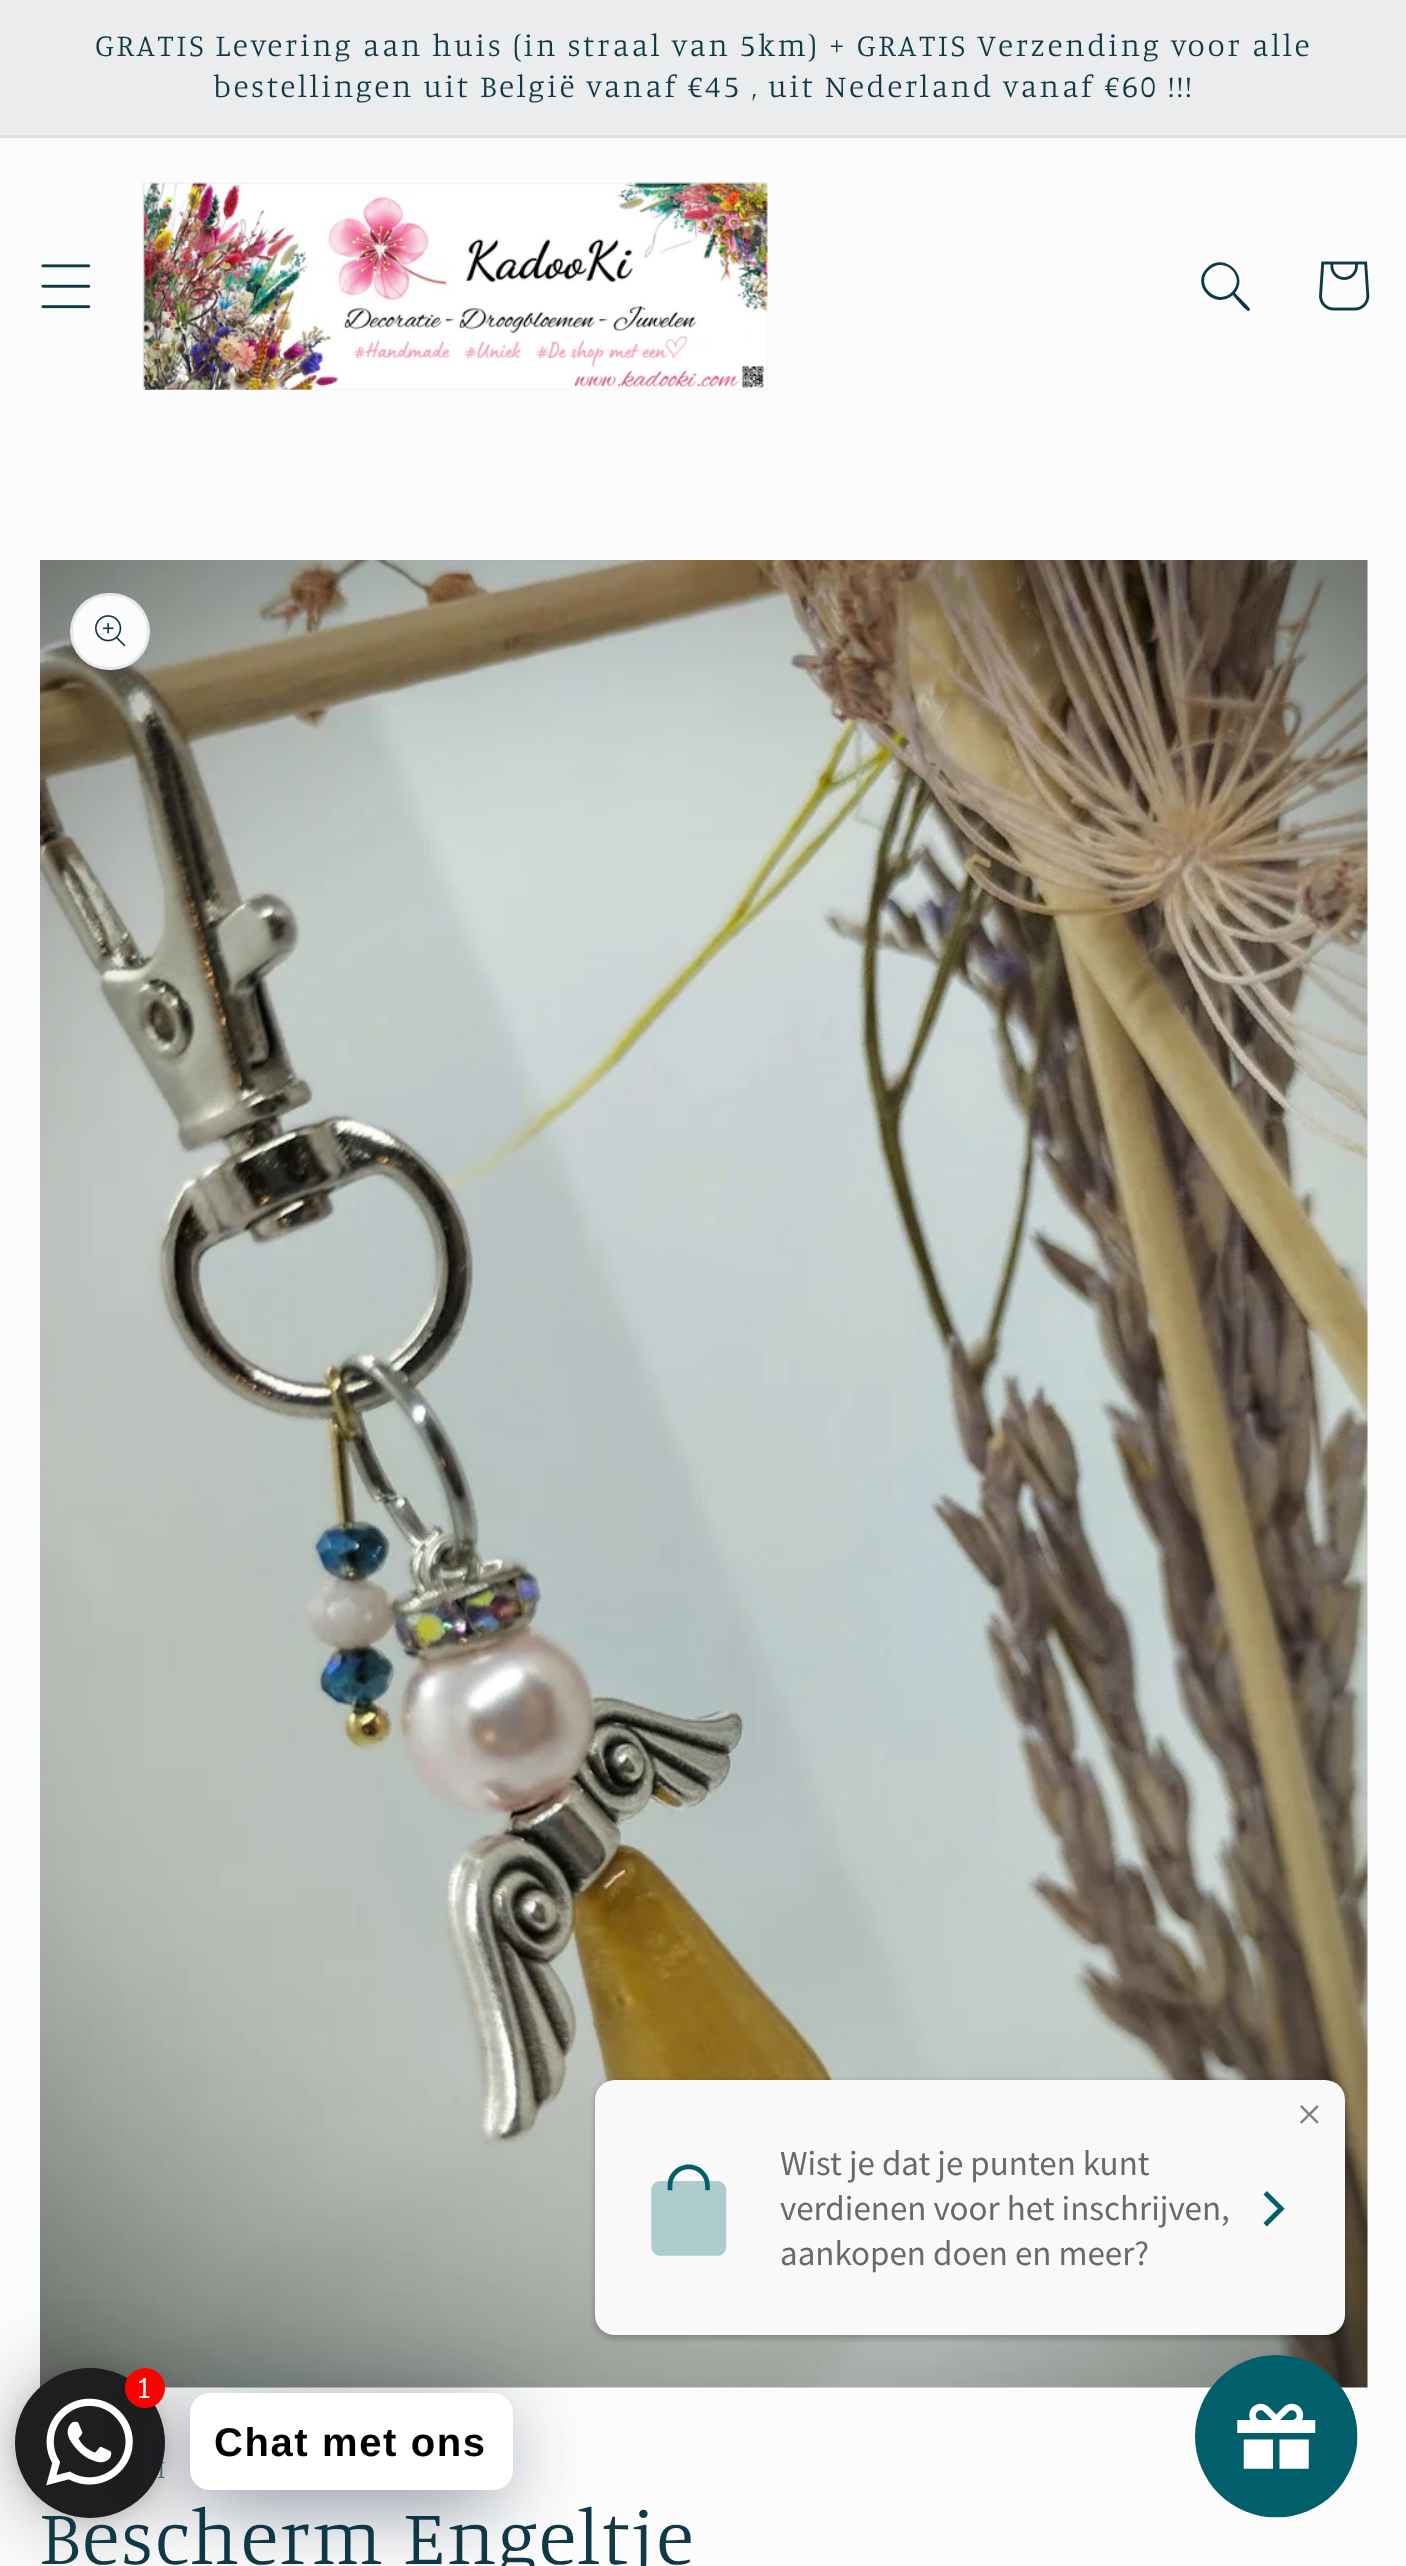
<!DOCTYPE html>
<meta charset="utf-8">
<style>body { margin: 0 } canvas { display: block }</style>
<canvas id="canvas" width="1406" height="2566"></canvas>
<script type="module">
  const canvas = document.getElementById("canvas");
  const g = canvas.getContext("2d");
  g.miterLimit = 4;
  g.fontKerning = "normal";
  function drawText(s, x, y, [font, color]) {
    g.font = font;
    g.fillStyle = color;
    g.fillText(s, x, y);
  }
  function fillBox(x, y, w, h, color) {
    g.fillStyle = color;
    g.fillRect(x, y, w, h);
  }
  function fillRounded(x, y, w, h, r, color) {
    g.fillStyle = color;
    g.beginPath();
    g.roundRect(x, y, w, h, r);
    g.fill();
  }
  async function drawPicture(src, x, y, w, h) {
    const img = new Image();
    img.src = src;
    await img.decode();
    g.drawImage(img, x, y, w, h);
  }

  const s1 = ["300 31.5px Manuale", "#103948"];
  const s2 = ["300 26px Manuale", "#4B6A75"];
  const s3 = ["300 78.75px Manuale", "#103948"];
  const s4 = ["28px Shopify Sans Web", "#FFFFFF"];
  const s5 = ["bold 40px Liberation Sans", "#000000"];

  fillBox(0, 0, 1406, 2566, "#FCFCFC");
  fillBox(0, 0, 1406, 135, "#EBECED");
  fillBox(0, 135, 1406, 3, "#D9DEE0");
  g.letterSpacing = "2.62px";
  drawText("GRATIS Levering aan huis (in straal van 5km) + GRATIS Verzending voor alle", 95, 56, s1);
  drawText("bestellingen uit België vanaf €45 , uit Nederland vanaf €60 !!!", 213, 97, s1);
  await drawPicture("pic1.png", 41, 264, 50, 45);
  await drawPicture("pic2.png", 142, 182, 626, 208);
  g.beginPath();
  g.moveTo(1232, 292);
  g.bezierCurveTo(1217, 307, 1194, 284, 1209, 270);
  g.bezierCurveTo(1224, 255, 1247, 277, 1232, 292);
  g.closePath();
  g.moveTo(1233, 295);
  g.bezierCurveTo(1214, 311, 1190, 284, 1207, 268);
  g.bezierCurveTo(1224, 251, 1250, 276, 1235, 293);
  g.bezierCurveTo(1237, 295, 1250, 308, 1250, 309);
  g.lineTo(1249, 311);
  g.bezierCurveTo(1247, 312, 1235, 298, 1233, 295);
  g.closePath();
  g.fill("evenodd");
  await drawPicture("pic3.png", 1319, 261, 51, 50);
  await drawPicture("pic7.png", 40, 560, 1328, 1828);
  await drawPicture("pic4.png", 590, 2077, 759, 266);
  g.fillStyle = "rgba(0, 0, 0, 0.16)";
  g.filter = "blur(40px)";
  g.beginPath();
  g.roundRect(15, 2373, 150, 150, 75);
  g.fill();
  g.filter = "none";
  g.fillStyle = "rgba(0, 0, 0, 0.06)";
  g.filter = "blur(7.5px)";
  g.beginPath();
  g.roundRect(15, 2370, 150, 150, 75);
  g.fill();
  g.filter = "none";
  g.fillStyle = "rgba(0, 18, 46, 0.24)";
  g.filter = "blur(40px)";
  g.beginPath();
  g.roundRect(203, 2413, 277, 92, 20);
  g.fill();
  g.filter = "none";
  await drawPicture("pic5.png", 1195, 2355, 163, 163);
  g.fillStyle = "rgba(0, 0, 0, 0.16)";
  g.filter = "blur(40px)";
  g.beginPath();
  g.roundRect(15, 2373, 150, 150, 75);
  g.fill();
  g.filter = "none";
  g.fillStyle = "rgba(0, 0, 0, 0.06)";
  g.filter = "blur(7.5px)";
  g.beginPath();
  g.roundRect(15, 2370, 150, 150, 75);
  g.fill();
  g.filter = "none";
  g.letterSpacing = "3px";
  drawText("I", 157, 2478, s2);
  g.letterSpacing = "1.6px";
  drawText("Bescherm Engeltje", 39, 2564, s3);
  g.fillStyle = "#1E1E20";
  g.beginPath();
  g.arc(90, 2443, 75, 0, Math.PI * 2);
  g.fill();
  g.fillStyle = "rgba(0, 18, 46, 0.24)";
  g.filter = "blur(40px)";
  g.beginPath();
  g.roundRect(190, 2408, 323, 97, 20);
  g.fill();
  g.filter = "none";
  await drawPicture("pic6.png", 46, 2398, 87, 88);
  g.fillStyle = "#FF0000";
  g.beginPath();
  g.arc(145, 2388, 20, 0, Math.PI * 2);
  g.fill();
  drawText("1", 138, 2398, s4);
  fillRounded(190, 2393, 323, 97, 20, "#FFFFFF");
  drawText("Chat met ons", 214, 2456, s5);
  fillRounded(70, 593, 80, 77, 38.5, "#FCFCFC");
  g.beginPath();
  g.roundRect(71.5, 594.5, 77, 74, 37);
  g.strokeStyle = "rgba(16, 57, 72, 0.1)";
  g.lineWidth = 3;
  g.stroke();
  await drawPicture("pic8.png", 95, 615, 30, 32);
</script>
